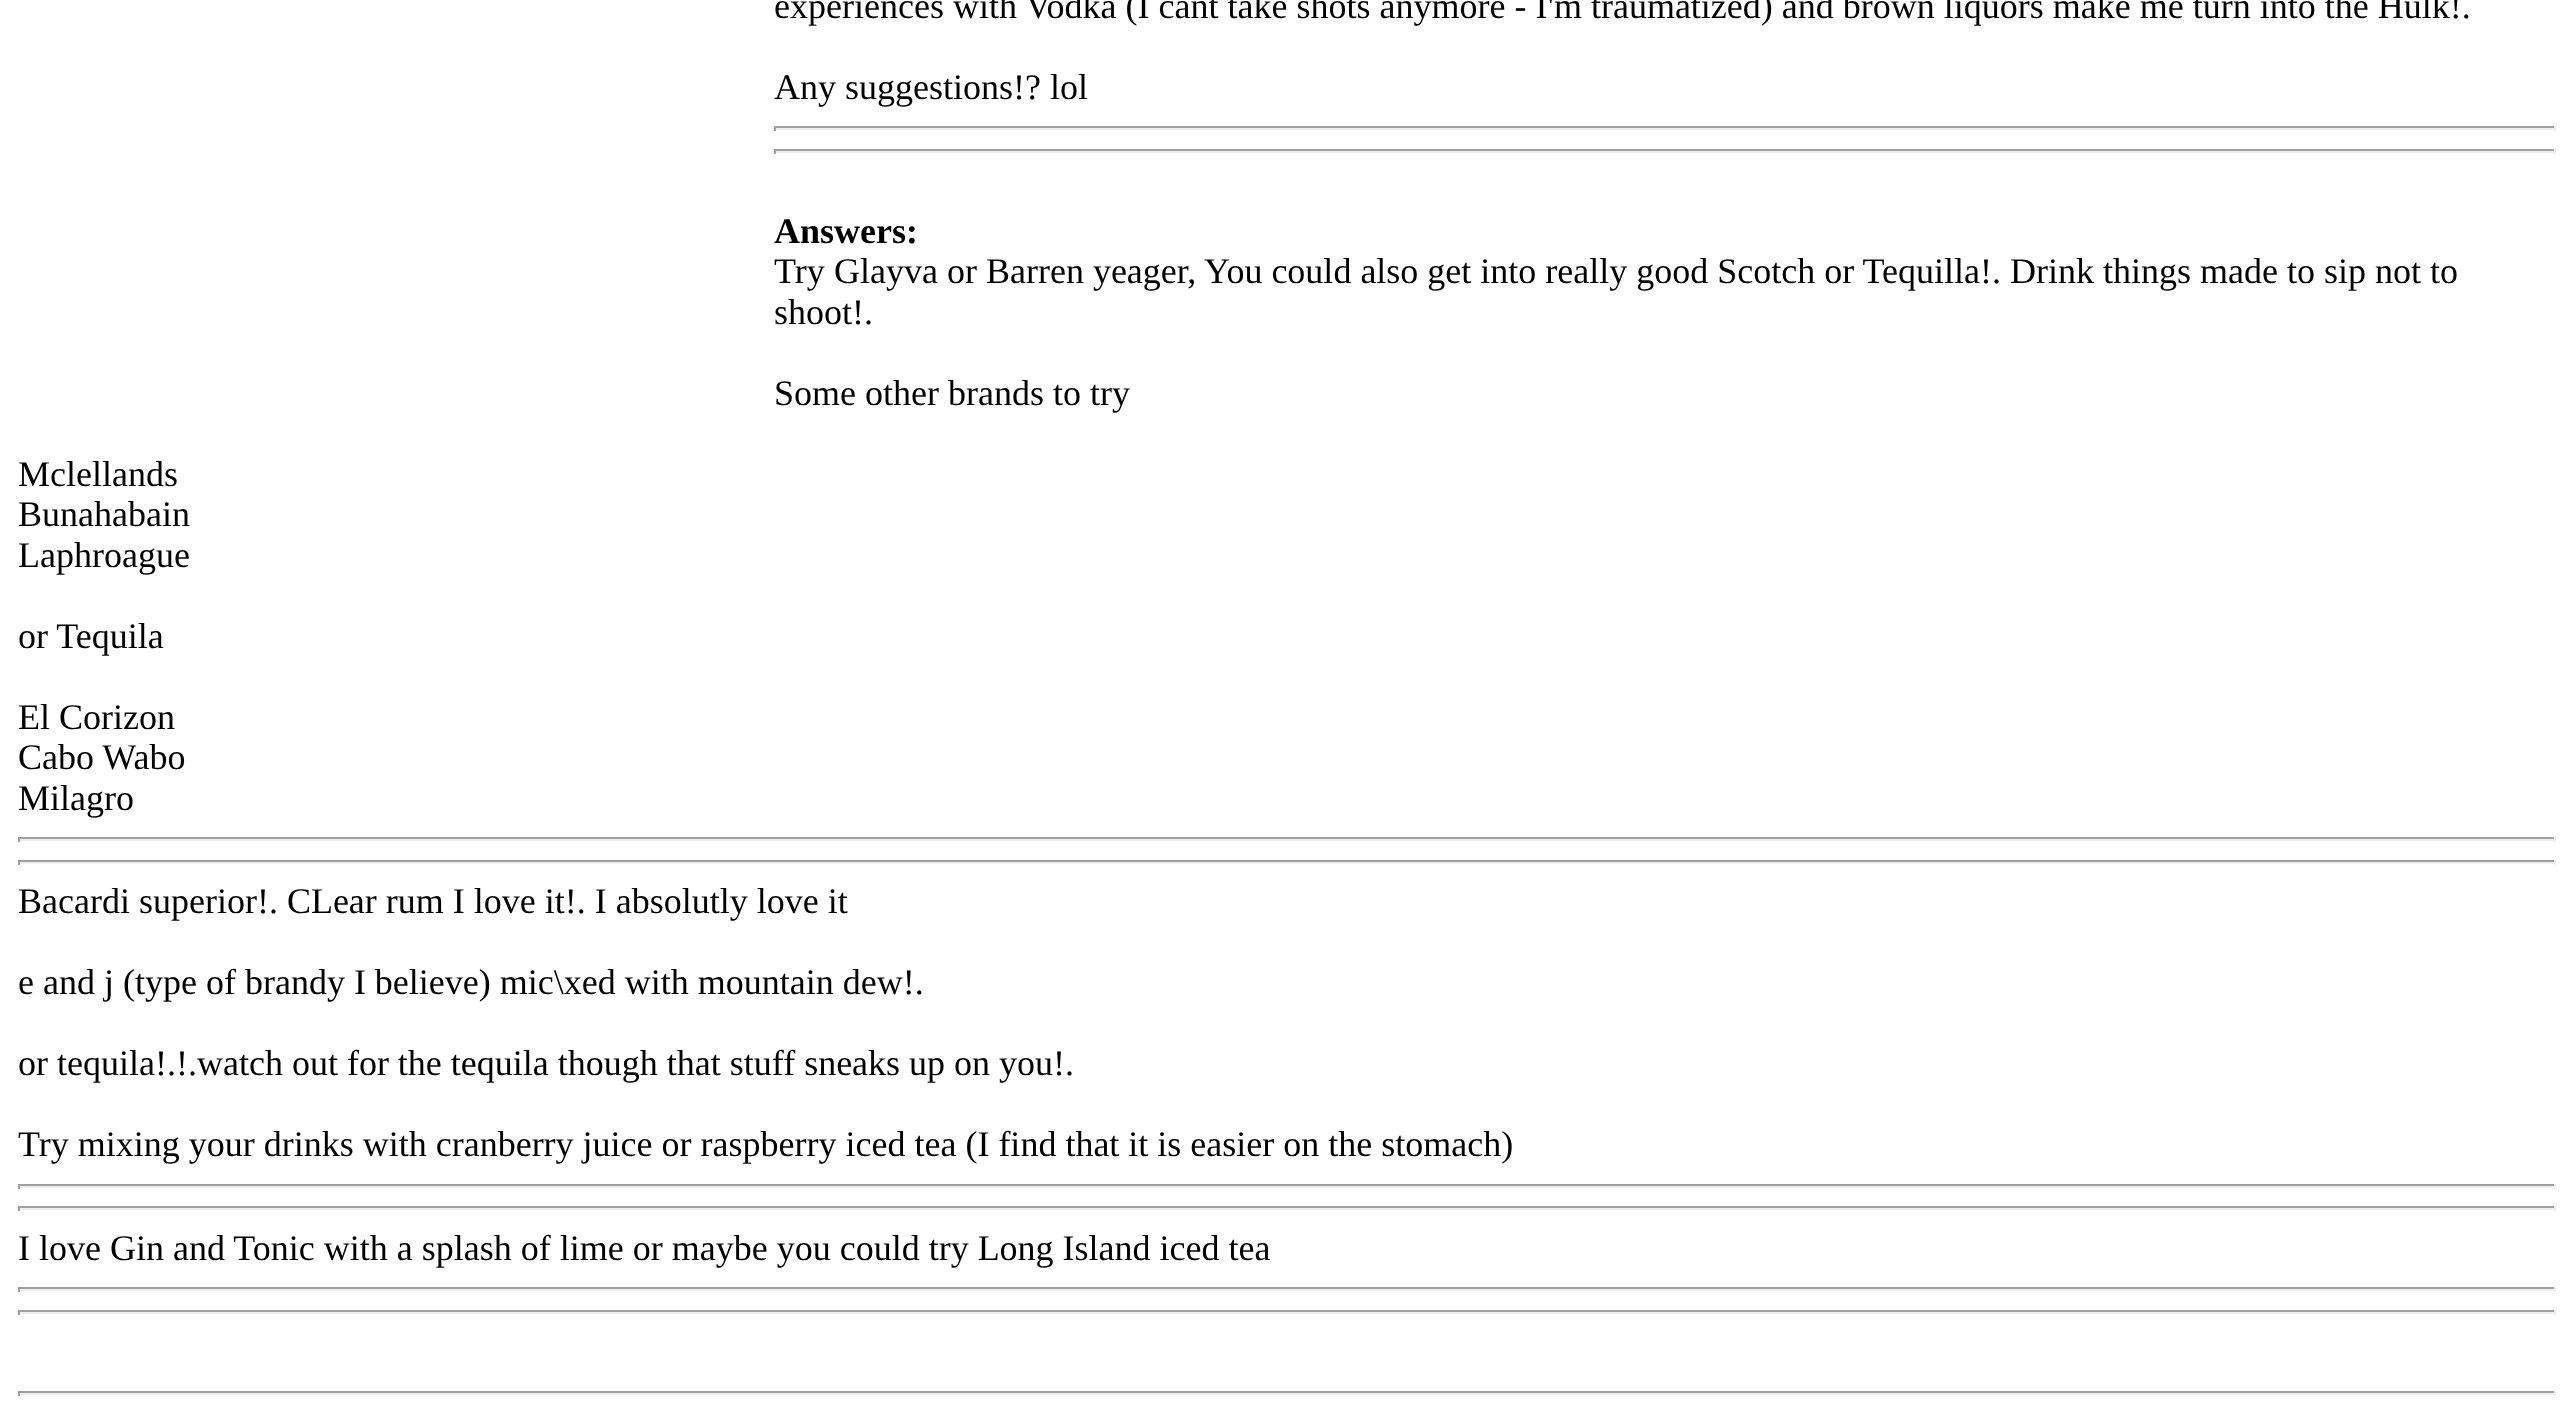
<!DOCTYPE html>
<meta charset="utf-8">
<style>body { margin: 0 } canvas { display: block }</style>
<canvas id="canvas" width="2574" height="1415"></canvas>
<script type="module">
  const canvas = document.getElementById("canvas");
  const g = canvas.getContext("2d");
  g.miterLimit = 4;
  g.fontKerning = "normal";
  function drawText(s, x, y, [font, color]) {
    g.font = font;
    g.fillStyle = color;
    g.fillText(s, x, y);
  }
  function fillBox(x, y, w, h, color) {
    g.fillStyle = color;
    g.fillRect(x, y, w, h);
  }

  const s1 = ["36px Liberation Serif", "#000000"];
  const s2 = ["bold 36px Liberation Serif", "#000000"];

  fillBox(0, 0, 2574, 1415, "#FFFFFF");
  drawText("experiences with Vodka (I cant take shots anymore - I'm traumatized) and brown liquors make me turn into the Hulk!.", 774, 18, s1);
  drawText("Any suggestions!? lol", 774, 99, s1);
  fillBox(774, 126, 1782, 2, "#9F9F9F");
  fillBox(2554, 126, 2, 5, "#EEEEEE");
  fillBox(774, 128, 1782, 2, "#EEEEEE");
  fillBox(774, 126, 2, 5, "#9F9F9F");
  fillBox(774, 149, 1782, 2, "#9F9F9F");
  fillBox(2554, 149, 2, 5, "#EEEEEE");
  fillBox(774, 151, 1782, 2, "#EEEEEE");
  fillBox(774, 149, 2, 5, "#9F9F9F");
  drawText("Answers:", 774, 243, s2);
  drawText("Try", 774, 283, s1);
  drawText("Glayva or Barren yeager,", 834, 283, s1);
  drawText("You could also get into really good Scotch or Tequilla!. Drink things made to sip not to", 1204, 283, s1);
  drawText("shoot!.", 774, 324, s1);
  drawText("Some other brands to try", 774, 405, s1);
  drawText("Mclellands", 18, 486, s1);
  drawText("Bunahabain", 18, 526, s1);
  drawText("Laphroague", 18, 567, s1);
  drawText("or Tequila", 18, 648, s1);
  drawText("El Corizon", 18, 729, s1);
  drawText("Cabo Wabo", 18, 769, s1);
  drawText("Milagro", 18, 810, s1);
  fillBox(18, 837, 2538, 2, "#9F9F9F");
  fillBox(2554, 837, 2, 5, "#EEEEEE");
  fillBox(18, 839, 2538, 2, "#EEEEEE");
  fillBox(18, 837, 2, 5, "#9F9F9F");
  fillBox(18, 860, 2538, 2, "#9F9F9F");
  fillBox(2554, 860, 2, 5, "#EEEEEE");
  fillBox(18, 862, 2538, 2, "#EEEEEE");
  fillBox(18, 860, 2, 5, "#9F9F9F");
  drawText("Bacardi superior!. CLear rum I love it!. I absolutly love it", 18, 913, s1);
  drawText("e and j (type of brandy I believe) mic\\xed with mountain dew!.", 18, 994, s1);
  drawText("or tequila!.!.watch out for the tequila though that stuff sneaks up on you!.", 18, 1075, s1);
  drawText("Try mixing your drinks with cranberry juice or raspberry iced tea (I find that it is easier on the stomach)", 18, 1156, s1);
  fillBox(18, 1184, 2538, 2, "#9F9F9F");
  fillBox(2554, 1184, 2, 5, "#EEEEEE");
  fillBox(18, 1186, 2538, 2, "#EEEEEE");
  fillBox(18, 1184, 2, 5, "#9F9F9F");
  fillBox(18, 1206, 2538, 2, "#9F9F9F");
  fillBox(2554, 1206, 2, 5, "#EEEEEE");
  fillBox(18, 1208, 2538, 2, "#EEEEEE");
  fillBox(18, 1206, 2, 5, "#9F9F9F");
  drawText("I love Gin and Tonic with a splash of lime or maybe you could try Long Island iced tea", 18, 1260, s1);
  fillBox(18, 1287, 2538, 2, "#9F9F9F");
  fillBox(2554, 1287, 2, 5, "#EEEEEE");
  fillBox(18, 1289, 2538, 2, "#EEEEEE");
  fillBox(18, 1287, 2, 5, "#9F9F9F");
  fillBox(18, 1310, 2538, 2, "#9F9F9F");
  fillBox(2554, 1310, 2, 5, "#EEEEEE");
  fillBox(18, 1312, 2538, 2, "#EEEEEE");
  fillBox(18, 1310, 2, 5, "#9F9F9F");
  fillBox(18, 1391, 2538, 2, "#9F9F9F");
  fillBox(2554, 1391, 2, 5, "#EEEEEE");
  fillBox(18, 1393, 2538, 2, "#EEEEEE");
  fillBox(18, 1391, 2, 5, "#9F9F9F");
</script>
